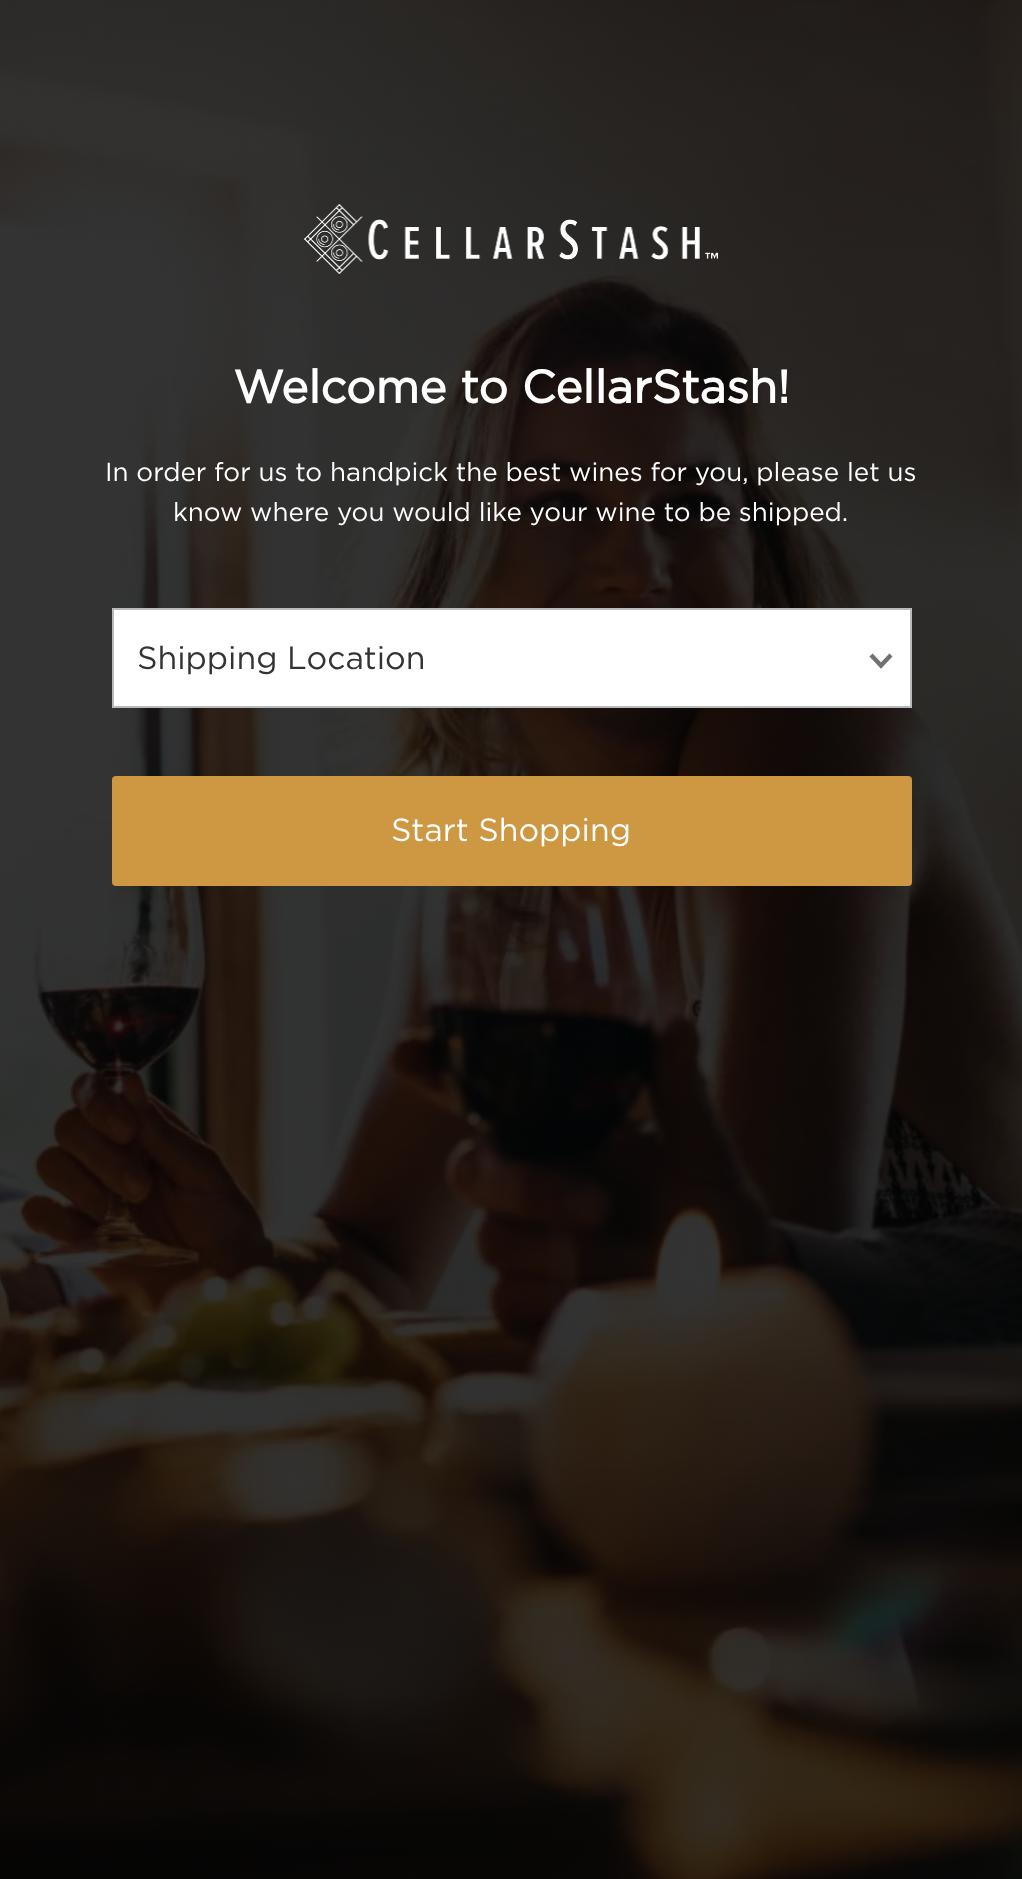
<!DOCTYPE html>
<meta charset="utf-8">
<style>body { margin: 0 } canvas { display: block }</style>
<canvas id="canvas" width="1022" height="1879"></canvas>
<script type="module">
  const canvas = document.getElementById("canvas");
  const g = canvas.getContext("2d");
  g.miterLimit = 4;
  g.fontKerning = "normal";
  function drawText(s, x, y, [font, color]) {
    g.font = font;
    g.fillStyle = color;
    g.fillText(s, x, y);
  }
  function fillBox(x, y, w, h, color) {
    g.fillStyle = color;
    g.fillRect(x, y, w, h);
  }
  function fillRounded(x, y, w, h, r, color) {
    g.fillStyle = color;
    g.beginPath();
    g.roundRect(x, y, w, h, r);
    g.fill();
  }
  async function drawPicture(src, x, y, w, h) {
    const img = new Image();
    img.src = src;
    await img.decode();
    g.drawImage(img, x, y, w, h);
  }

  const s1 = ["bold 46px Gotham", "#FFFFFF"];
  const s2 = ["26px Gotham", "#FFFFFF"];
  const s3 = ["32px Gotham", "#333333"];
  const s4 = ["32px Gotham", "#FFFFFF"];

  fillBox(0, 0, 1022, 1879, "#FFFFFF");
  await drawPicture("pic1.png", 0, 0, 1022, 1879);
  await drawPicture("pic2.png", 304, 204, 414, 70);
  drawText("Welcome to CellarStash!", 233, 403, s1);
  drawText("In order for us to handpick the best wines for you, please let us", 105, 481, s2);
  drawText("know where you would like your wine to be shipped.", 173, 521, s2);
  g.beginPath();
  g.rect(113, 609, 798, 98);
  g.fill();
  g.strokeStyle = "#BABABA";
  g.lineWidth = 2;
  g.stroke();
  drawText("Shipping Location", 137, 669, s3);
  g.beginPath();
  g.moveTo(889.5, 656.5);
  g.lineTo(881, 665.5);
  g.lineTo(872.5, 656.5);
  g.strokeStyle = "#717171";
  g.lineWidth = 4.3;
  g.lineCap = "square";
  g.stroke();
  fillRounded(112, 776, 800, 110, 4, "#CE9741");
  drawText("Start Shopping", 391, 841, s4);
</script>
